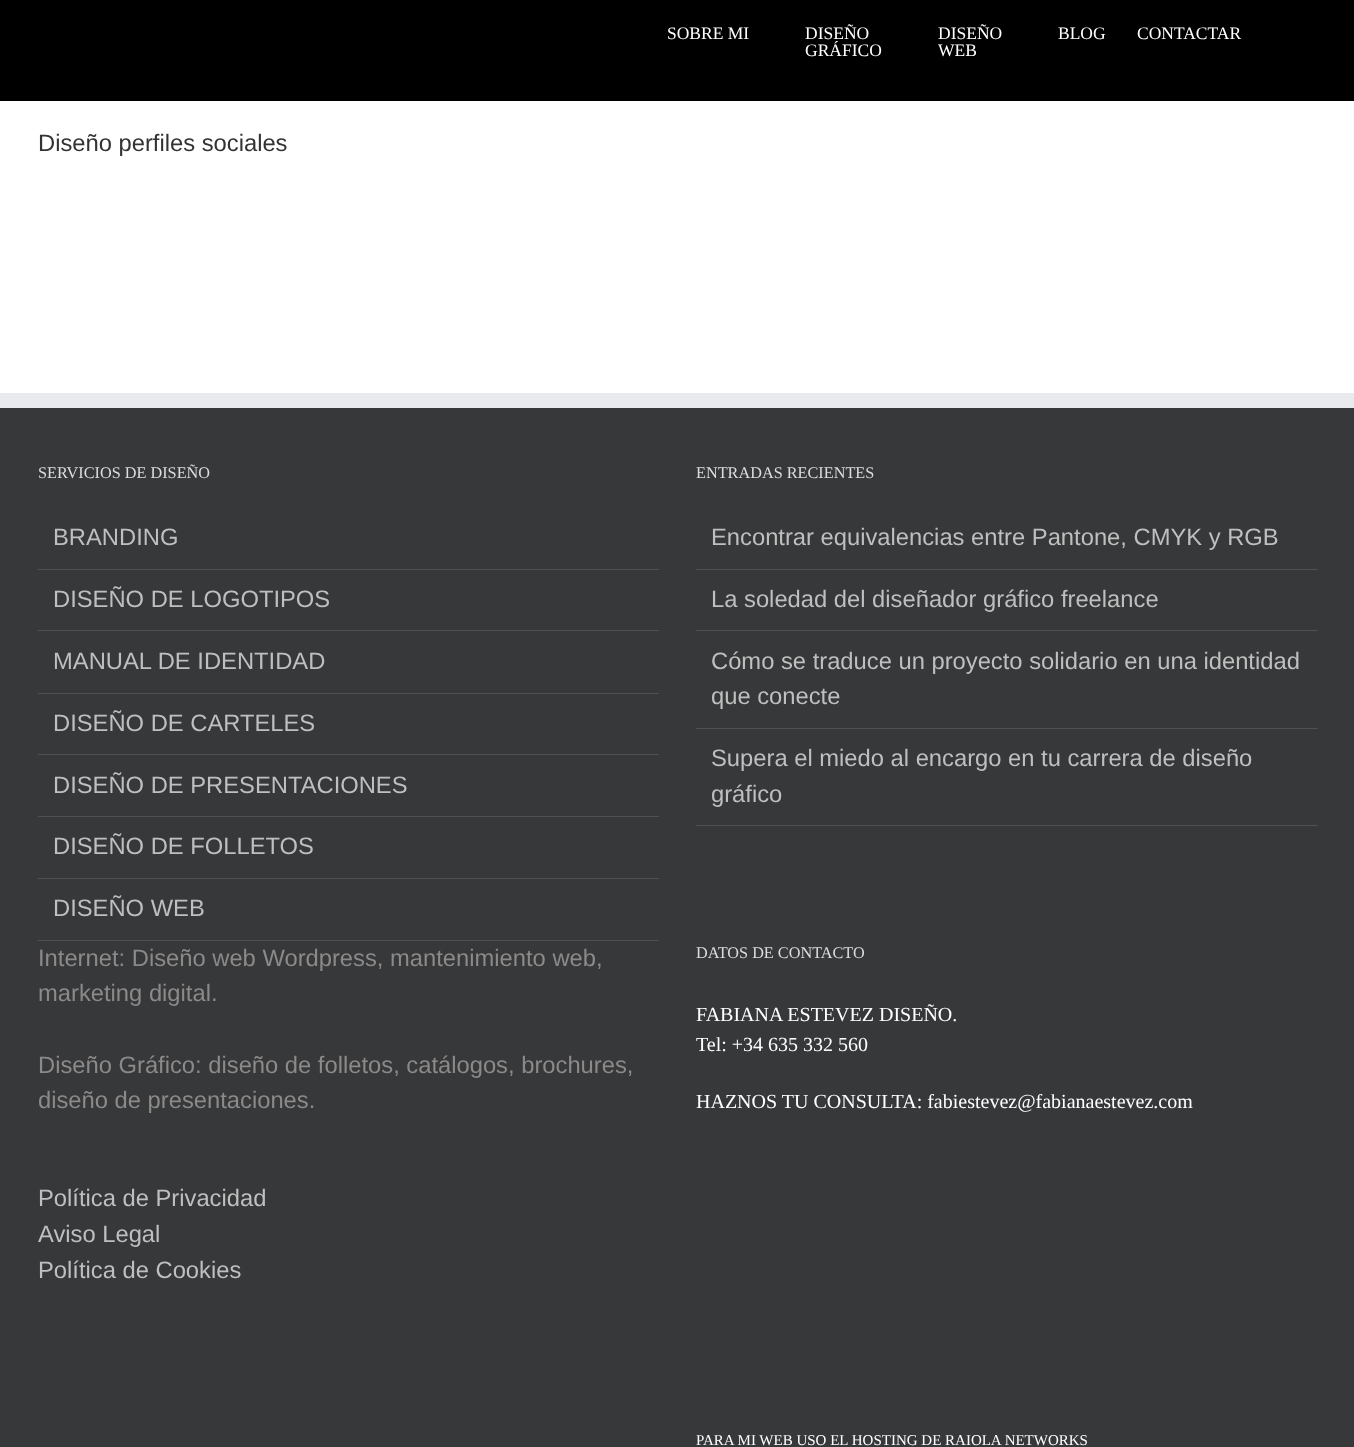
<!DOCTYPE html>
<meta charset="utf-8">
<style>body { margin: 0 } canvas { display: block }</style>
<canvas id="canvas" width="1354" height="1447"></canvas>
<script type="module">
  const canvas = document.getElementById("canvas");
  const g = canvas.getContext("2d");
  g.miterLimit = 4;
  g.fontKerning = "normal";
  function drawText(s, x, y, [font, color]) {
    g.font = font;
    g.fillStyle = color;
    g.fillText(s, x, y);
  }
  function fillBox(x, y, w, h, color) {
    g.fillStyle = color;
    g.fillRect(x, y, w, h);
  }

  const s1 = ["17.5px Liberation Serif", "#FFFFFF"];
  const s2 = ["23.75px Liberation Sans", "#333333"];
  const s3 = ["16.25px Liberation Serif", "#DDDDDD"];
  const s4 = ["23.75px Liberation Sans", "#BFBFBF"];
  const s5 = ["23.75px Liberation Sans", "#8C8989"];
  const s6 = ["20px Liberation Serif", "#FFFFFF"];
  const s7 = ["15px Liberation Serif", "#FFFFFF"];

  fillBox(0, 0, 1354, 1447, "#FFFFFF");
  fillBox(0, 0, 1354, 101, "#000000");
  drawText("SOBRE MI", 667, 39, s1);
  drawText("DISEÑO", 805, 39, s1);
  drawText("GRÁFICO", 805, 56, s1);
  drawText("DISEÑO", 938, 39, s1);
  drawText("WEB", 938, 56, s1);
  drawText("BLOG", 1058, 39, s1);
  drawText("CONTACTAR", 1137, 39, s1);
  drawText("Diseño perfiles sociales", 38, 151, s2);
  fillBox(0, 408, 1354, 1039, "#363839");
  fillBox(0, 393, 1354, 15, "#E9EAEE");
  drawText("SERVICIOS DE DISEÑO", 38, 478, s3);
  fillBox(38, 569, 621, 1, "#505152");
  drawText("BRANDING", 53, 545, s4);
  fillBox(38, 630, 621, 1, "#505152");
  drawText("DISEÑO DE LOGOTIPOS", 53, 607, s4);
  fillBox(38, 693, 621, 1, "#505152");
  drawText("MANUAL DE IDENTIDAD", 53, 669, s4);
  fillBox(38, 754, 621, 1, "#505152");
  drawText("DISEÑO DE CARTELES", 53, 731, s4);
  fillBox(38, 816, 621, 1, "#505152");
  drawText("DISEÑO DE PRESENTACIONES", 53, 793, s4);
  fillBox(38, 878, 621, 1, "#505152");
  drawText("DISEÑO DE FOLLETOS", 53, 854, s4);
  fillBox(38, 940, 621, 1, "#505152");
  drawText("DISEÑO WEB", 53, 916, s4);
  drawText("ENTRADAS RECIENTES", 696, 478, s3);
  fillBox(696, 569, 622, 1, "#505152");
  drawText("Encontrar equivalencias entre Pantone, CMYK y RGB", 711, 545, s4);
  fillBox(696, 630, 622, 1, "#505152");
  drawText("La soledad del diseñador gráfico freelance", 711, 607, s4);
  fillBox(696, 728, 622, 1, "#505152");
  drawText("Cómo se traduce un proyecto solidario en una identidad", 711, 669, s4);
  drawText("que conecte", 711, 704, s4);
  fillBox(696, 825, 622, 1, "#505152");
  drawText("Supera el miedo al encargo en tu carrera de diseño", 711, 766, s4);
  drawText("gráfico", 711, 802, s4);
  drawText("Internet: Diseño web Wordpress, mantenimiento web,", 38, 966, s5);
  drawText("marketing digital.", 38, 1001, s5);
  drawText("Diseño Gráfico: diseño de folletos, catálogos, brochures,", 38, 1073, s5);
  drawText("diseño de presentaciones.", 38, 1108, s5);
  drawText("Política de Privacidad", 38, 1206, s4);
  drawText("Aviso Legal", 38, 1242, s4);
  drawText("Política de Cookies", 38, 1278, s4);
  drawText("DATOS DE CONTACTO", 696, 958, s3);
  drawText("FABIANA ESTEVEZ DISEÑO.", 696, 1021, s6);
  drawText("Tel: +34 635 332 560", 696, 1051, s6);
  drawText("HAZNOS TU CONSULTA: fabiestevez@fabianaestevez.com", 696, 1108, s6);
  drawText("PARA MI WEB USO EL HOSTING DE RAIOLA NETWORKS", 696, 1445, s7);
</script>
